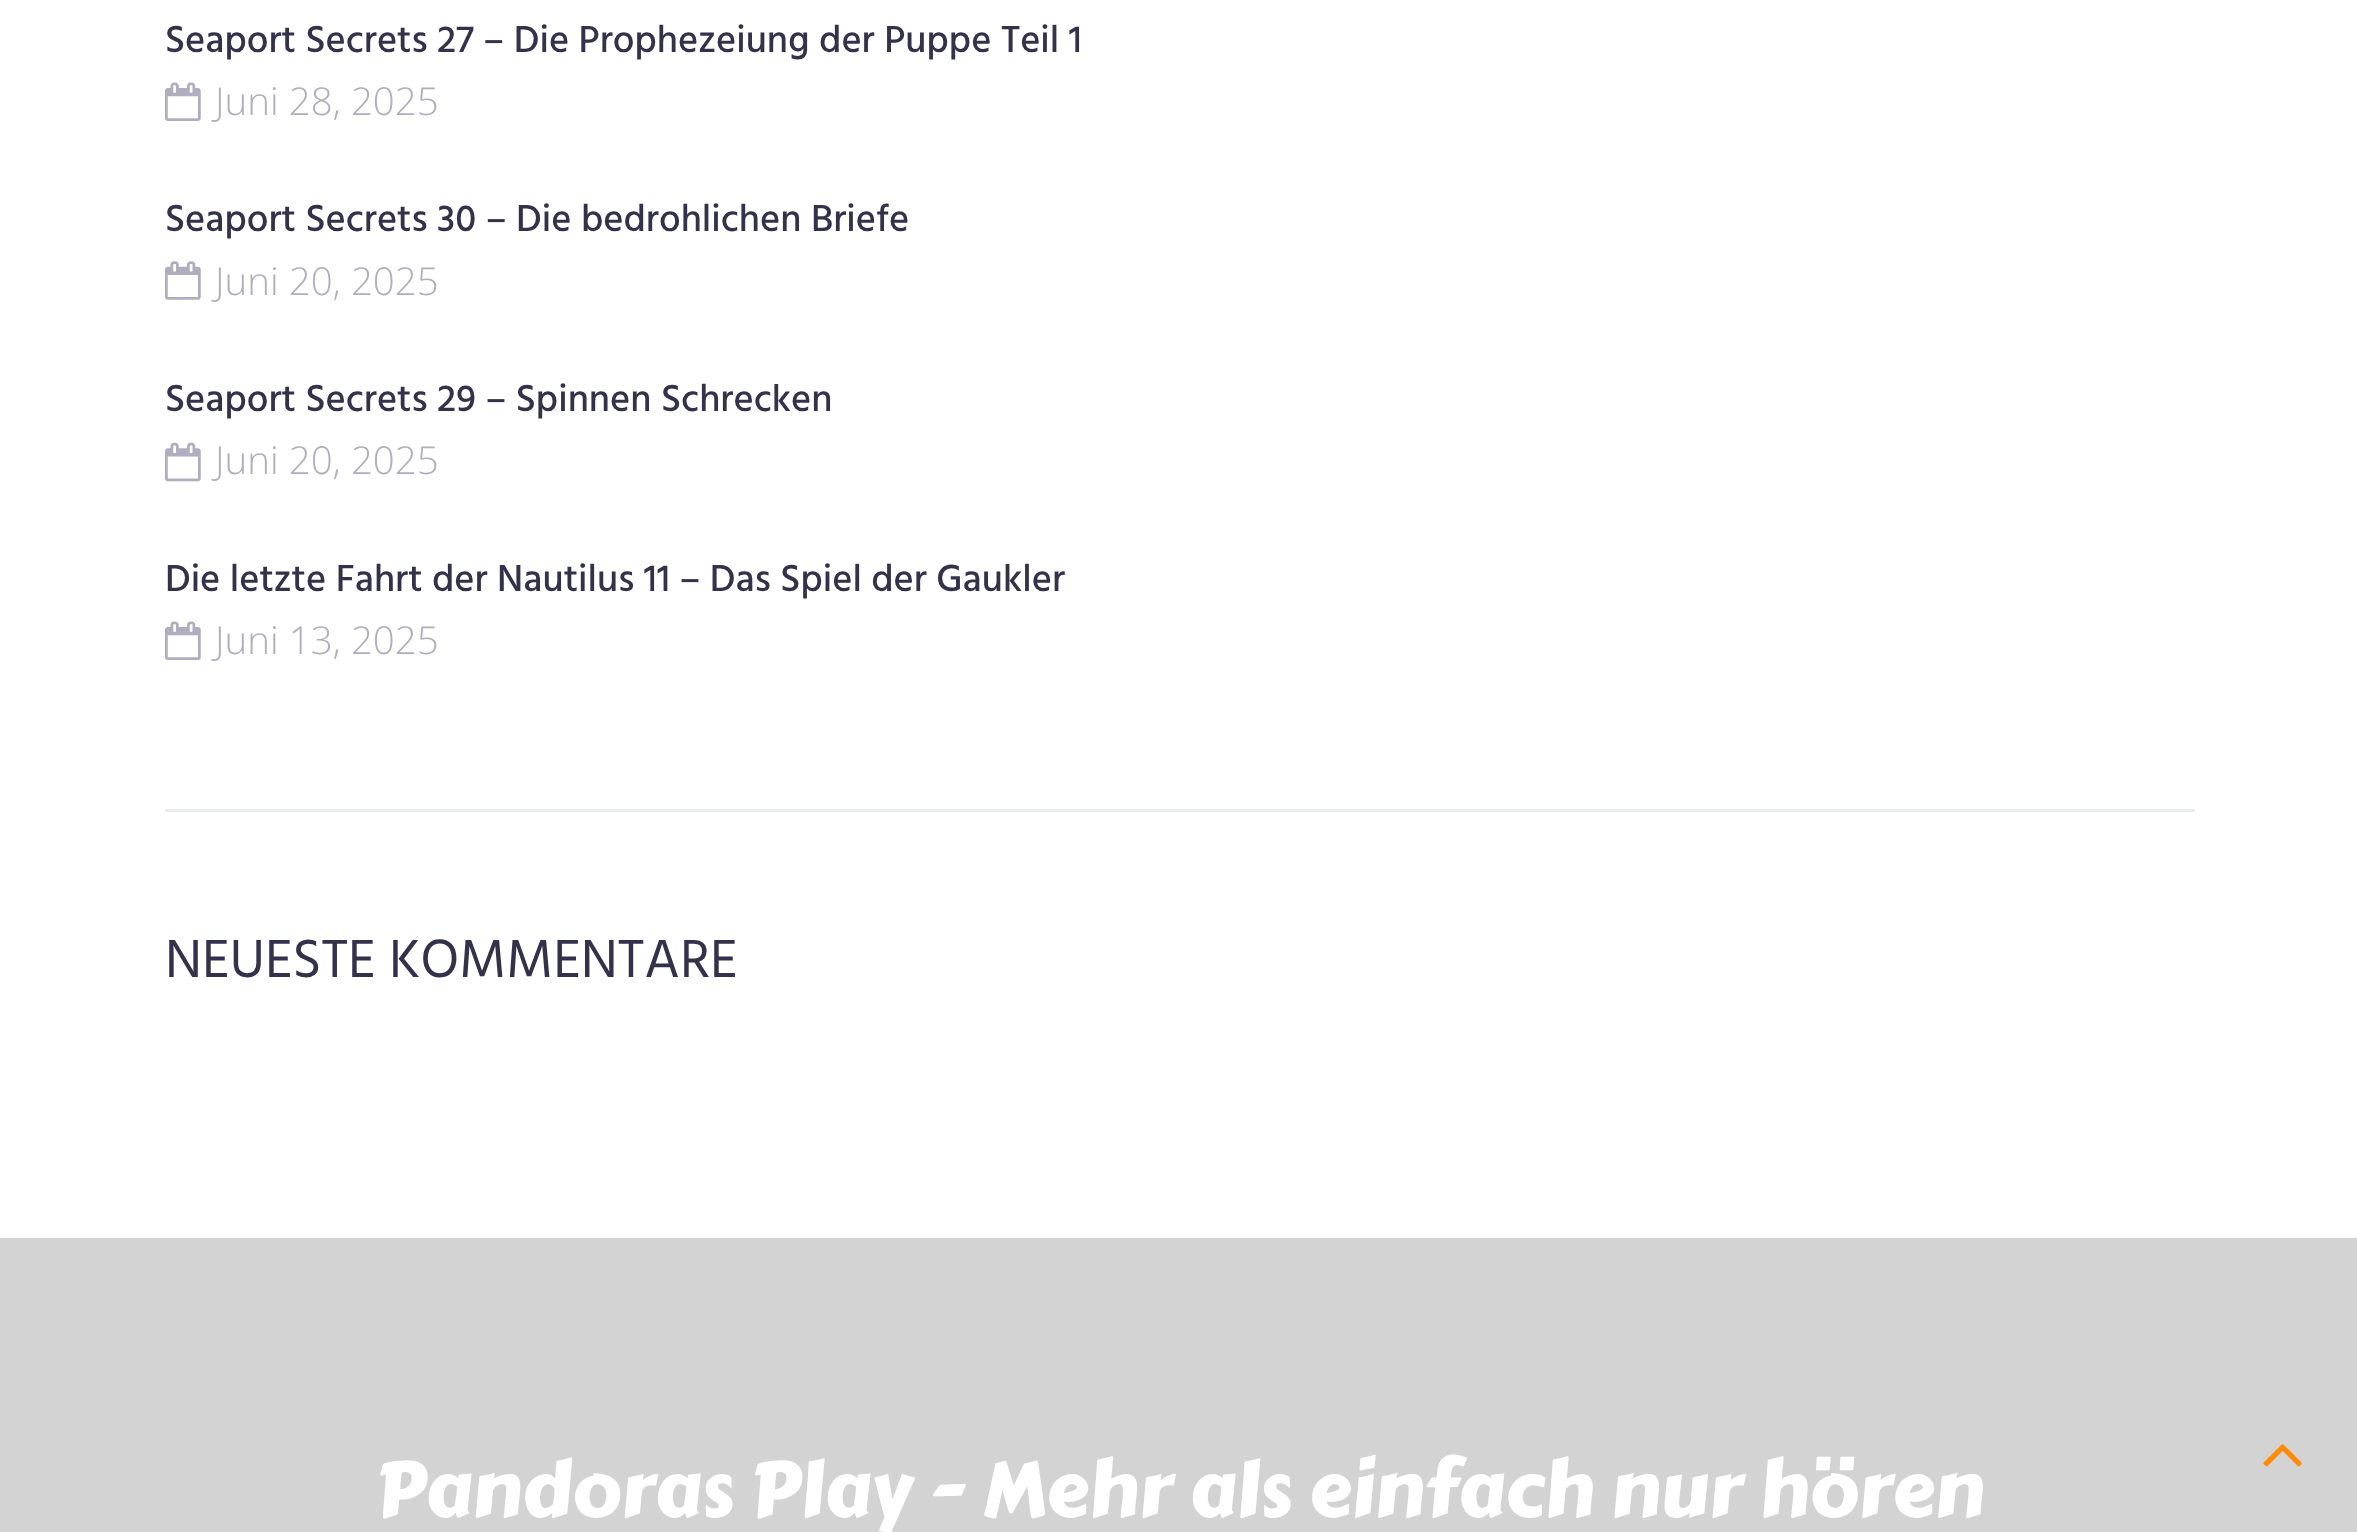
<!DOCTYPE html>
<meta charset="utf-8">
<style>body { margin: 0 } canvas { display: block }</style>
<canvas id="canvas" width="2357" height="1532"></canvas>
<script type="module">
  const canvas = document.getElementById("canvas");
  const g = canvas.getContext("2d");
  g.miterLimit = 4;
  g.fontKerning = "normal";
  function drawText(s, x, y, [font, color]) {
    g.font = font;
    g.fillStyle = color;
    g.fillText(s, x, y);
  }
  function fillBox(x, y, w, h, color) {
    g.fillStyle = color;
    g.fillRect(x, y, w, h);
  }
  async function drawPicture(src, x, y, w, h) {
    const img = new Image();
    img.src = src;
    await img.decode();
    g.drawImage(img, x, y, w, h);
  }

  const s1 = ["500 38.5px Hind", "#34314B"];
  const s2 = ["300 38.5px Open Sans", "#B0AEBE"];
  const s3 = ["55px Hind", "#34314B"];
  const s4 = ["77px Carter One", "#FFFFFF"];

  fillBox(0, 0, 2357, 1532, "#FFFFFF");
  drawText("Seaport Secrets 27 – Die Prophezeiung der Puppe Teil 1", 165, 52, s1);
  await drawPicture("pic1.png", 165, 82, 36, 39);
  drawText("Juni 28, 2025", 215, 115, s2);
  drawText("Seaport Secrets 30 – Die bedrohlichen Briefe", 165, 231, s1);
  await drawPicture("pic2.png", 165, 261, 36, 39);
  drawText("Juni 20, 2025", 215, 295, s2);
  drawText("Seaport Secrets 29 – Spinnen Schrecken", 165, 411, s1);
  await drawPicture("pic3.png", 165, 442, 36, 40);
  drawText("Juni 20, 2025", 215, 474, s2);
  drawText("Die letzte Fahrt der Nautilus 11 – Das Spiel der Gaukler", 165, 591, s1);
  await drawPicture("pic1.png", 165, 621, 36, 39);
  drawText("Juni 13, 2025", 215, 654, s2);
  fillBox(165, 809, 2030, 3, "#EBECED");
  drawText("NEUESTE KOMMENTARE", 165, 977, s3);
  fillBox(0, 1238, 2357, 294, "#D3D3D3");
  drawText("Pandoras Play - Mehr als einfach nur hören", 375, 1516, s4);
  await drawPicture("pic4.png", 2263, 1444, 39, 23);
</script>
